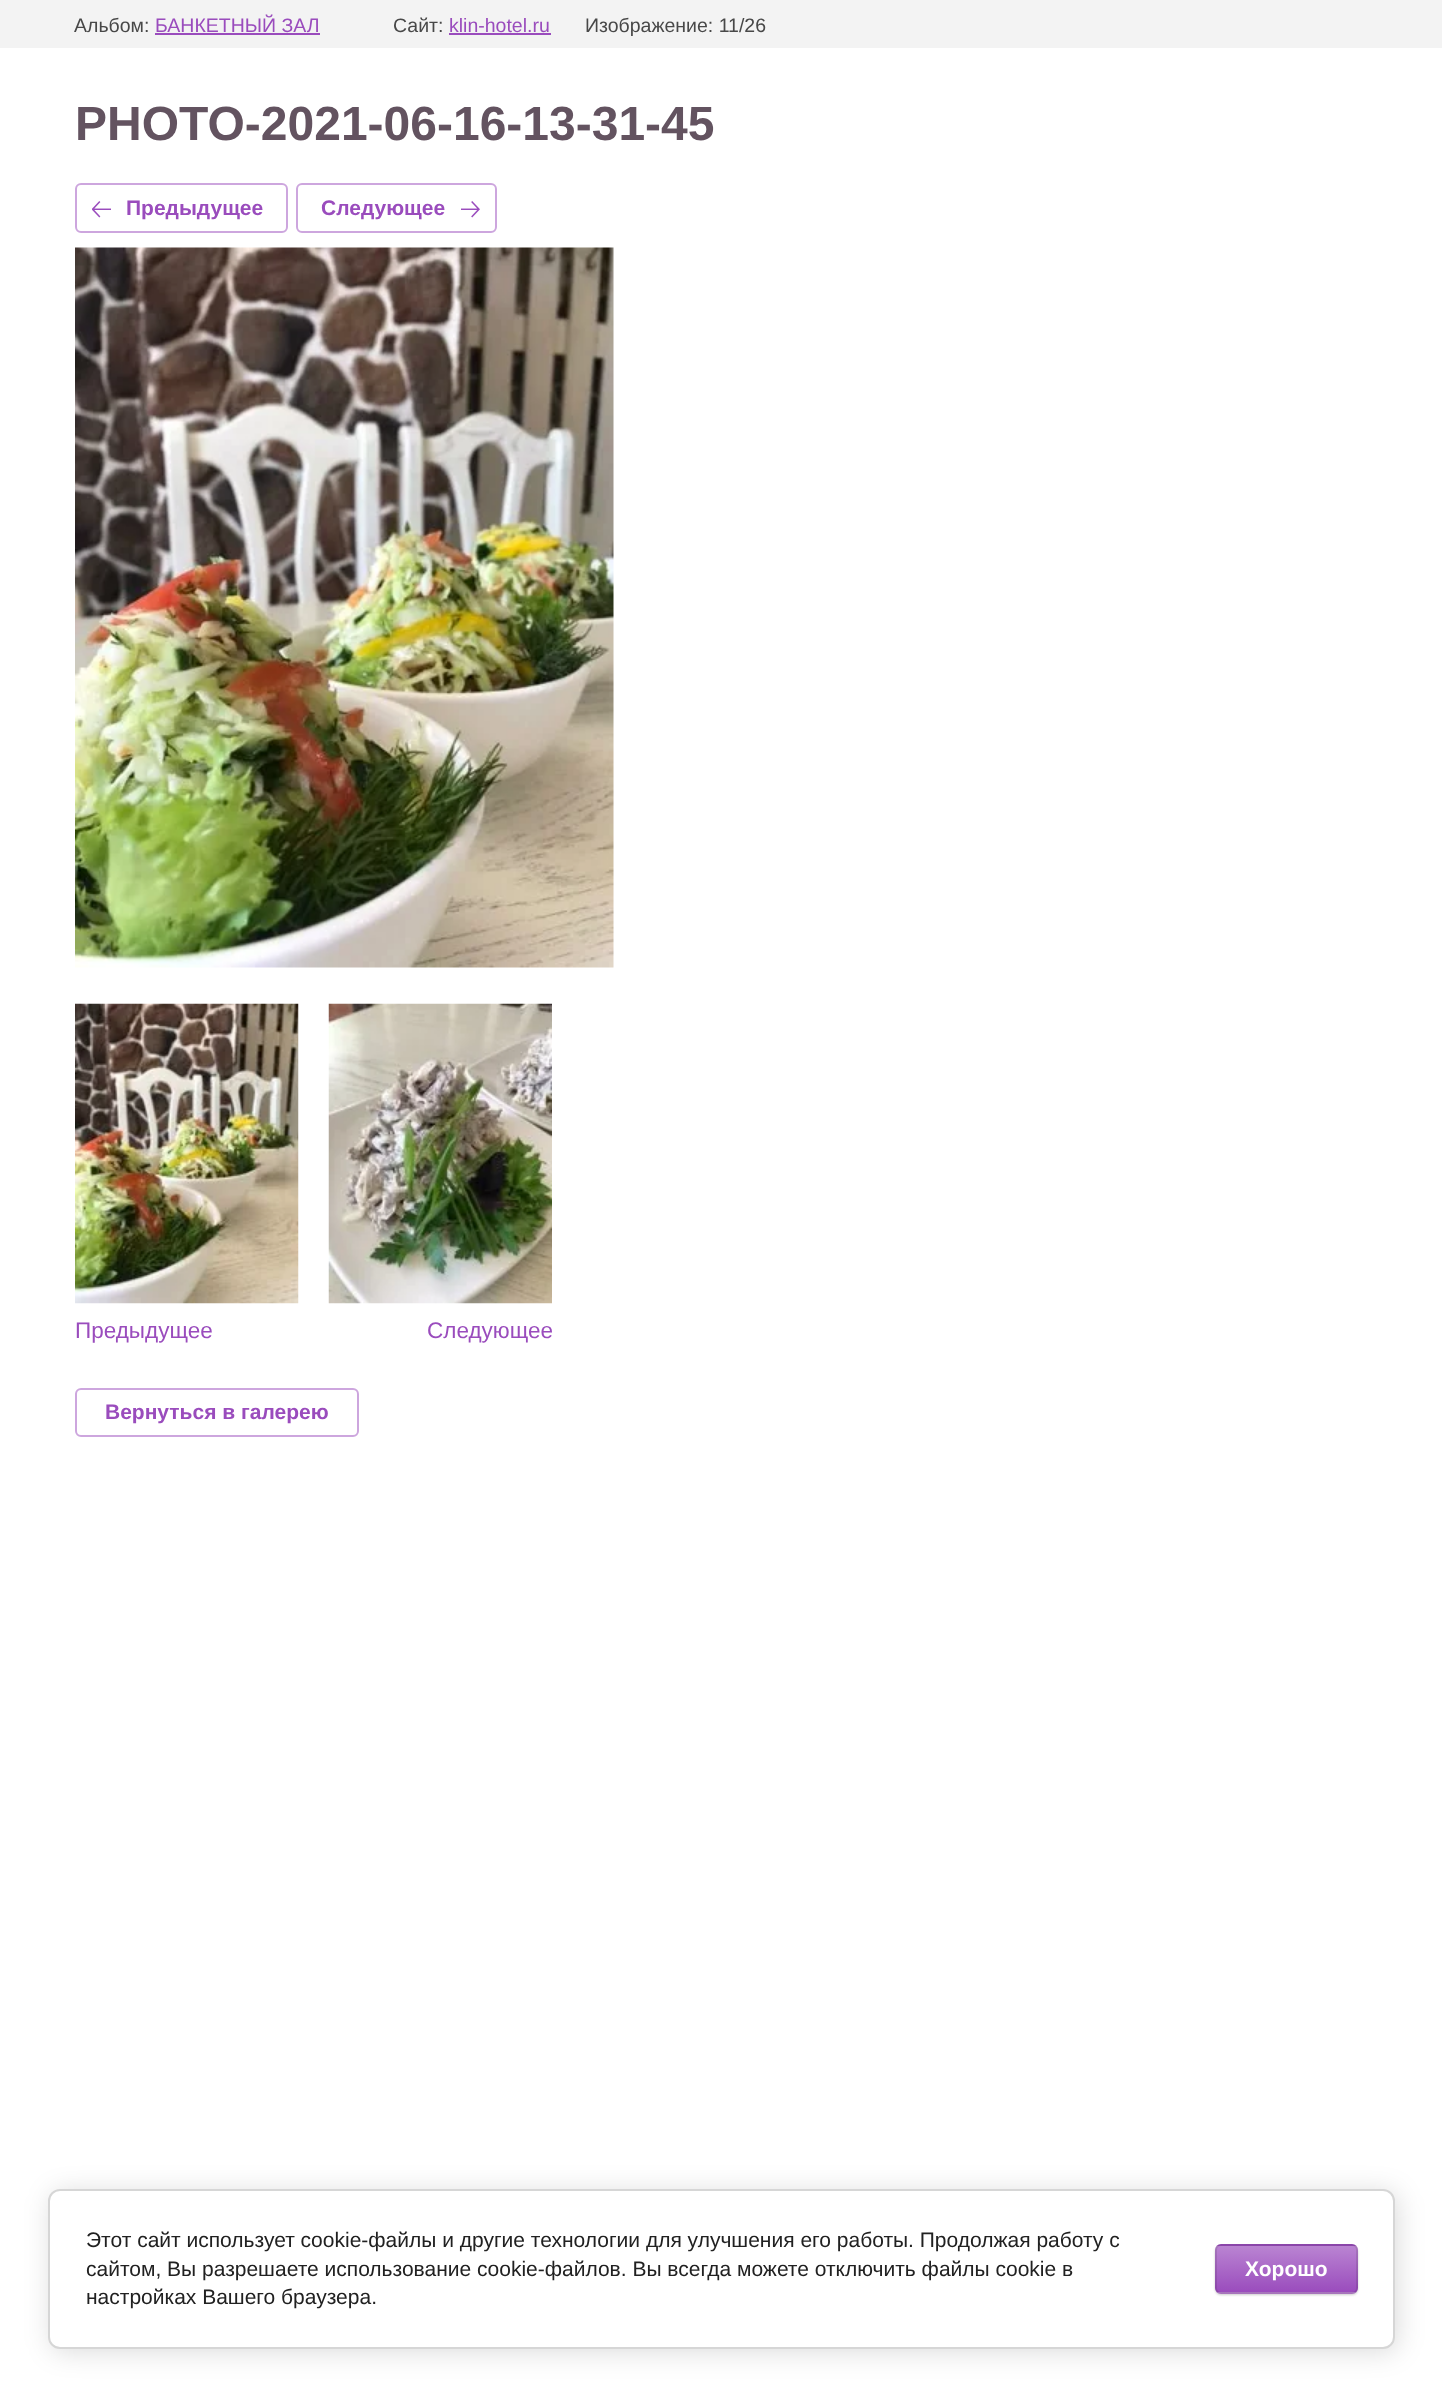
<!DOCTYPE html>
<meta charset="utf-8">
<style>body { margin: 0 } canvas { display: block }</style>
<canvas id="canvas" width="1442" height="2397"></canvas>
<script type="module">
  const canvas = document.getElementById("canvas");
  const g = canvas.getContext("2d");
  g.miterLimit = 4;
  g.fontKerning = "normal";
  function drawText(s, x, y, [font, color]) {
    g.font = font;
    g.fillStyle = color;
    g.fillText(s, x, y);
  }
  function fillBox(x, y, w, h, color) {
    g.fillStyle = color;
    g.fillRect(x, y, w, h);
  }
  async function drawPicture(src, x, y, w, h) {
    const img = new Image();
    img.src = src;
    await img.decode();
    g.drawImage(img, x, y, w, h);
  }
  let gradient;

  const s1 = ["19.5px Liberation Sans", "#484848"];
  const s2 = ["19.5px Liberation Sans", "#9A4CBD"];
  const s3 = ["bold 48px Liberation Sans", "#635360"];
  const s4 = ["bold 21px Liberation Sans", "#9A4CBD"];
  const s5 = ["22.5px Liberation Sans", "#9A4CBD"];
  const s6 = ["21px Liberation Sans", "#212121"];
  const s7 = ["bold 21px Liberation Sans", "#FFFFFF"];

  fillBox(0, 0, 1442, 2397, "#FFFFFF");
  fillBox(0, 0, 1442, 48, "#F3F3F3");
  drawText("Альбом:", 74, 32, s1);
  drawText("БАНКЕТНЫЙ ЗАЛ", 155, 32, s2);
  fillBox(155, 33, 165, 2, "#9A4CBD");
  drawText("Сайт:", 393, 32, s1);
  drawText("klin-hotel.ru", 449, 32, s2);
  fillBox(449, 33, 102, 2, "#9A4CBD");
  drawText("Изображение: 11/26", 585, 32, s1);
  drawText("PHOTO-2021-06-16-13-31-45", 75, 140, s3);
  g.beginPath();
  g.roundRect(76, 184, 211, 48, 5);
  g.strokeStyle = "#CDA6DE";
  g.lineWidth = 2;
  g.stroke();
  await drawPicture("pic1.png", 92, 201, 19, 17);
  drawText("Предыдущее", 126, 215, s4);
  g.beginPath();
  g.roundRect(297, 184, 199, 48, 5);
  g.stroke();
  drawText("Следующее", 321, 215, s4);
  await drawPicture("pic2.png", 461, 201, 19, 17);
  await drawPicture("pic3.png", 75, 247, 539, 721);
  await drawPicture("pic4.png", 75, 1003, 224, 301);
  drawText("Предыдущее", 75, 1338, s5);
  await drawPicture("pic5.png", 328, 1003, 224, 301);
  drawText("Следующее", 427, 1338, s5);
  g.beginPath();
  g.roundRect(76, 1389, 282, 47, 5);
  g.stroke();
  drawText("Вернуться в галерею", 105, 1419, s4);
  g.fillStyle = "rgba(0, 0, 0, 0.14)";
  g.filter = "blur(13.5px)";
  g.beginPath();
  g.roundRect(51, 2192, 1347, 160, 12);
  g.fill();
  g.filter = "none";
  g.fillStyle = "#FFFFFF";
  g.beginPath();
  g.roundRect(49, 2190, 1345, 158, 11);
  g.fill();
  g.strokeStyle = "#D6D6D6";
  g.stroke();
  drawText("Этот сайт использует cookie-файлы и другие технологии для улучшения его работы. Продолжая работу с", 86, 2247, s6);
  drawText("сайтом, Вы разрешаете использование cookie-файлов. Вы всегда можете отключить файлы cookie в", 86, 2276, s6);
  drawText("настройках Вашего браузера.", 86, 2304, s6);
  g.fillStyle = "rgba(0, 0, 0, 0.2)";
  g.filter = "blur(1px)";
  g.beginPath();
  g.roundRect(1215, 2246, 143, 49, 6);
  g.fill();
  g.filter = "none";
  g.save();
  g.beginPath();
  g.roundRect(1215, 2244, 143, 50, 6);
  g.clip();
  gradient = g.createLinearGradient(1286, 2199, 1286, 2246);
  gradient.addColorStop(0, "#BA84D2");
  gradient.addColorStop(1, "#9A4CBD");
  g.fillStyle = gradient;
  g.fillRect(1215, 2244, 143, 2);
  gradient = g.createLinearGradient(1286, 2246, 1286, 2292);
  gradient.addColorStop(0, "#BA84D2");
  gradient.addColorStop(1, "#9A4CBD");
  g.fillStyle = gradient;
  g.fillRect(1215, 2246, 143, 46);
  gradient = g.createLinearGradient(1286, 2292, 1286, 2339);
  gradient.addColorStop(0, "#BA84D2");
  gradient.addColorStop(1, "#9A4CBD");
  g.fillStyle = gradient;
  g.fillRect(1215, 2292, 143, 2);
  g.restore();
  g.beginPath();
  g.roundRect(1216, 2245, 141, 48, 5);
  g.strokeStyle = "rgba(0, 0, 0, 0.1)";
  g.stroke();
  drawText("Хорошо", 1245, 2276, s7);
</script>
